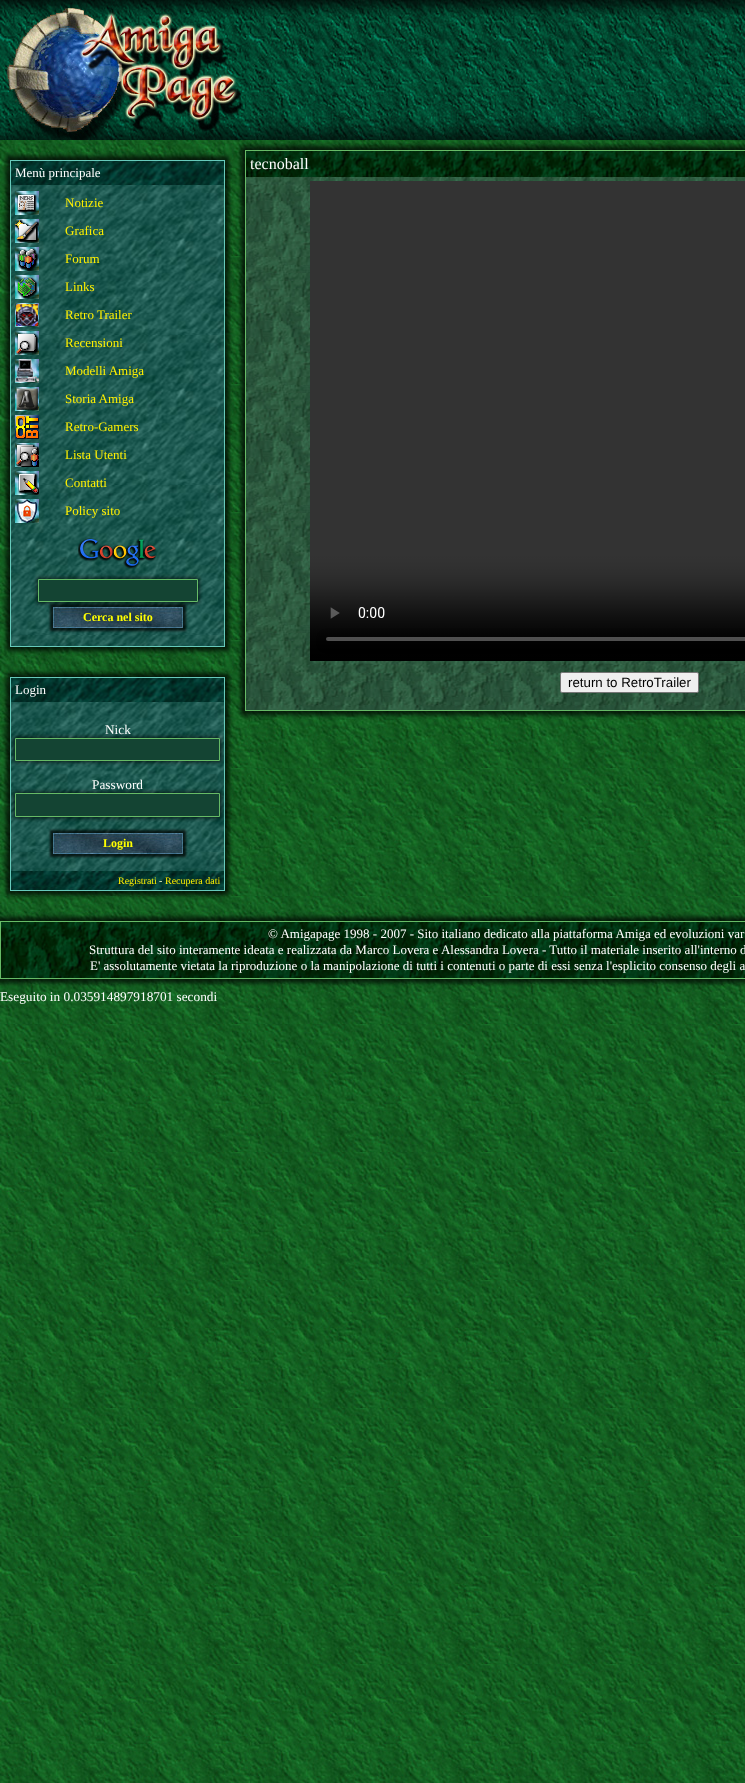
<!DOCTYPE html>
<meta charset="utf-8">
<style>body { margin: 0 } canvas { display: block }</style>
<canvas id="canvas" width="745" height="1783"></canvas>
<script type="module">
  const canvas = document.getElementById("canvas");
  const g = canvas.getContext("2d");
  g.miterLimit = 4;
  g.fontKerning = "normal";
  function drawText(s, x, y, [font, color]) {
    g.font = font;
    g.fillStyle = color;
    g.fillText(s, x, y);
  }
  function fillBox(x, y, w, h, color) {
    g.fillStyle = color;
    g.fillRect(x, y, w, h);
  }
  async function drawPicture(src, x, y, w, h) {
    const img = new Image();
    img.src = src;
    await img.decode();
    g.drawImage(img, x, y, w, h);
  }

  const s1 = ["13px Liberation Serif", "#FFFFFF"];
  const s2 = ["13px Liberation Serif", "#FFF000"];
  const s3 = ["bold 12px Liberation Serif", "#FFFF00"];
  const s4 = ["13.3px Liberation Serif", "#FFFFFF"];
  const s5 = ["10px Liberation Serif", "#FFF000"];
  const s6 = ["10px Liberation Serif", "#FFFFCC"];
  const s7 = ["16px Liberation Serif", "#FFFFFF"];
  const s8 = ["13.3px Liberation Sans", "#000000"];

  fillBox(0, 0, 745, 1783, "#FFFFFF");
  await drawPicture("pic1.png", 0, 140, 745, 1643);
  await drawPicture("pic2.png", 250, 0, 495, 140);
  g.fillStyle = "rgba(0, 0, 0, 0.7)";
  g.filter = "blur(2px)";
  g.beginPath();
  g.rect(241, 146, 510, 569);
  g.fill();
  g.filter = "none";
  await drawPicture("pic3.png", 0, 0, 250, 140);
  g.filter = "blur(2px)";
  g.beginPath();
  g.rect(6, 156, 223, 495);
  g.fill();
  g.filter = "none";
  fillBox(10, 160, 215, 1, "#66CABB");
  fillBox(224, 160, 1, 487, "#66CABB");
  fillBox(10, 646, 215, 1, "#66CABB");
  fillBox(10, 160, 1, 487, "#66CABB");
  await drawPicture("pic4.png", 11, 161, 213, 24);
  drawText("Menù principale", 15, 177, s1);
  await drawPicture("pic5.png", 11, 185, 213, 461);
  await drawPicture("pic6.png", 15, 191, 24, 24);
  drawText("Notizie", 65, 207, s2);
  await drawPicture("pic7.png", 15, 219, 24, 24);
  drawText("Grafica", 65, 235, s2);
  await drawPicture("pic8.png", 15, 247, 24, 24);
  drawText("Forum", 65, 263, s2);
  await drawPicture("pic9.png", 15, 275, 24, 24);
  drawText("Links", 65, 291, s2);
  await drawPicture("pic10.png", 15, 303, 24, 24);
  drawText("Retro Trailer", 65, 319, s2);
  await drawPicture("pic11.png", 15, 331, 24, 24);
  drawText("Recensioni", 65, 347, s2);
  await drawPicture("pic12.png", 15, 359, 24, 24);
  drawText("Modelli Amiga", 65, 375, s2);
  await drawPicture("pic13.png", 15, 387, 24, 24);
  drawText("Storia Amiga", 65, 403, s2);
  await drawPicture("pic14.png", 15, 415, 24, 24);
  drawText("Retro-Gamers", 65, 431, s2);
  await drawPicture("pic15.png", 15, 443, 24, 24);
  drawText("Lista Utenti", 65, 459, s2);
  await drawPicture("pic16.png", 15, 471, 24, 24);
  drawText("Contatti", 65, 487, s2);
  await drawPicture("pic17.png", 15, 499, 24, 24);
  drawText("Policy sito", 65, 515, s2);
  await drawPicture("pic18.png", 78, 538, 78, 31);
  g.fillStyle = "rgba(0, 0, 0, 0.7)";
  g.filter = "blur(2px)";
  g.beginPath();
  g.rect(37, 578, 162, 25);
  g.fill();
  g.filter = "none";
  g.fillStyle = "#144433";
  g.beginPath();
  g.rect(38.5, 579.5, 159, 22);
  g.fill();
  g.strokeStyle = "#66BB66";
  g.stroke();
  g.fillStyle = "rgba(0, 0, 0, 0.7)";
  g.filter = "blur(1px)";
  g.beginPath();
  g.rect(50, 604, 136, 27);
  g.fill();
  g.filter = "none";
  await drawPicture("pic19.png", 53, 607, 130, 21);
  drawText("Cerca nel sito", 83, 621, s3);
  g.fillStyle = "rgba(0, 0, 0, 0.7)";
  g.filter = "blur(2px)";
  g.beginPath();
  g.rect(6, 673, 223, 222);
  g.fill();
  g.filter = "none";
  fillBox(10, 677, 215, 1, "#66CABB");
  fillBox(224, 677, 1, 214, "#66CABB");
  fillBox(10, 890, 215, 1, "#66CABB");
  fillBox(10, 677, 1, 214, "#66CABB");
  await drawPicture("pic4.png", 11, 678, 213, 24);
  drawText("Login", 15, 694, s1);
  await drawPicture("pic20.png", 11, 702, 213, 169);
  drawText("Nick", 105, 734, s4);
  g.fillStyle = "rgba(0, 0, 0, 0.7)";
  g.filter = "blur(2px)";
  g.beginPath();
  g.rect(14, 737, 207, 25);
  g.fill();
  g.filter = "none";
  g.fillStyle = "#144433";
  g.beginPath();
  g.rect(15.5, 738.5, 204, 22);
  g.fill();
  g.stroke();
  drawText("Password", 92, 789, s4);
  g.fillStyle = "rgba(0, 0, 0, 0.7)";
  g.filter = "blur(2px)";
  g.beginPath();
  g.rect(14, 792, 207, 26);
  g.fill();
  g.filter = "none";
  g.fillStyle = "#144433";
  g.beginPath();
  g.rect(15.5, 793.5, 204, 23);
  g.fill();
  g.stroke();
  g.fillStyle = "rgba(0, 0, 0, 0.7)";
  g.filter = "blur(1px)";
  g.beginPath();
  g.rect(50, 830, 136, 27);
  g.fill();
  g.filter = "none";
  await drawPicture("pic19.png", 53, 833, 130, 21);
  drawText("Login", 103, 847, s3);
  await drawPicture("pic21.png", 11, 871, 213, 19);
  drawText("Registrati", 118, 884, s5);
  drawText("-", 159, 884, s6);
  drawText("Recupera dati", 165, 884, s5);
  fillBox(245, 150, 500, 1, "#66BB66");
  fillBox(245, 710, 500, 1, "#66BB66");
  fillBox(245, 150, 1, 561, "#66BB66");
  await drawPicture("pic22.png", 246, 151, 499, 26);
  drawText("tecnoball", 250, 169, s7);
  await drawPicture("pic23.png", 246, 177, 499, 533);
  await drawPicture("pic24.png", 310, 181, 435, 480);
  g.fillStyle = "#EFEFEF";
  g.beginPath();
  g.roundRect(560.5, 672.5, 138, 20, 1.5);
  g.fill();
  g.strokeStyle = "#767676";
  g.stroke();
  drawText("return to RetroTrailer", 568, 687, s8);
  g.fillStyle = "rgba(0, 0, 0, 0.7)";
  g.filter = "blur(2px)";
  g.beginPath();
  g.rect(-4, 917, 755, 66);
  g.fill();
  g.filter = "none";
  fillBox(0, 921, 745, 1, "#66BB66");
  fillBox(0, 978, 745, 1, "#66BB66");
  fillBox(0, 921, 1, 58, "#66BB66");
  await drawPicture("pic25.png", 1, 922, 744, 56);
  drawText("© Amigapage 1998 - 2007 - Sito italiano dedicato alla piattaforma Amiga ed evoluzioni var", 268, 938, s1);
  drawText("Struttura del sito interamente ideata e realizzata da Marco Lovera e Alessandra Lovera - Tutto il materiale inserito all'interno d", 89, 954, s1);
  drawText("E' assolutamente vietata la riproduzione o la manipolazione di tutti i contenuti o parte di essi senza l'esplicito consenso degli a", 90, 970, s1);
  drawText("Eseguito in 0.035914897918701 secondi", 0, 1001, s4);
</script>
